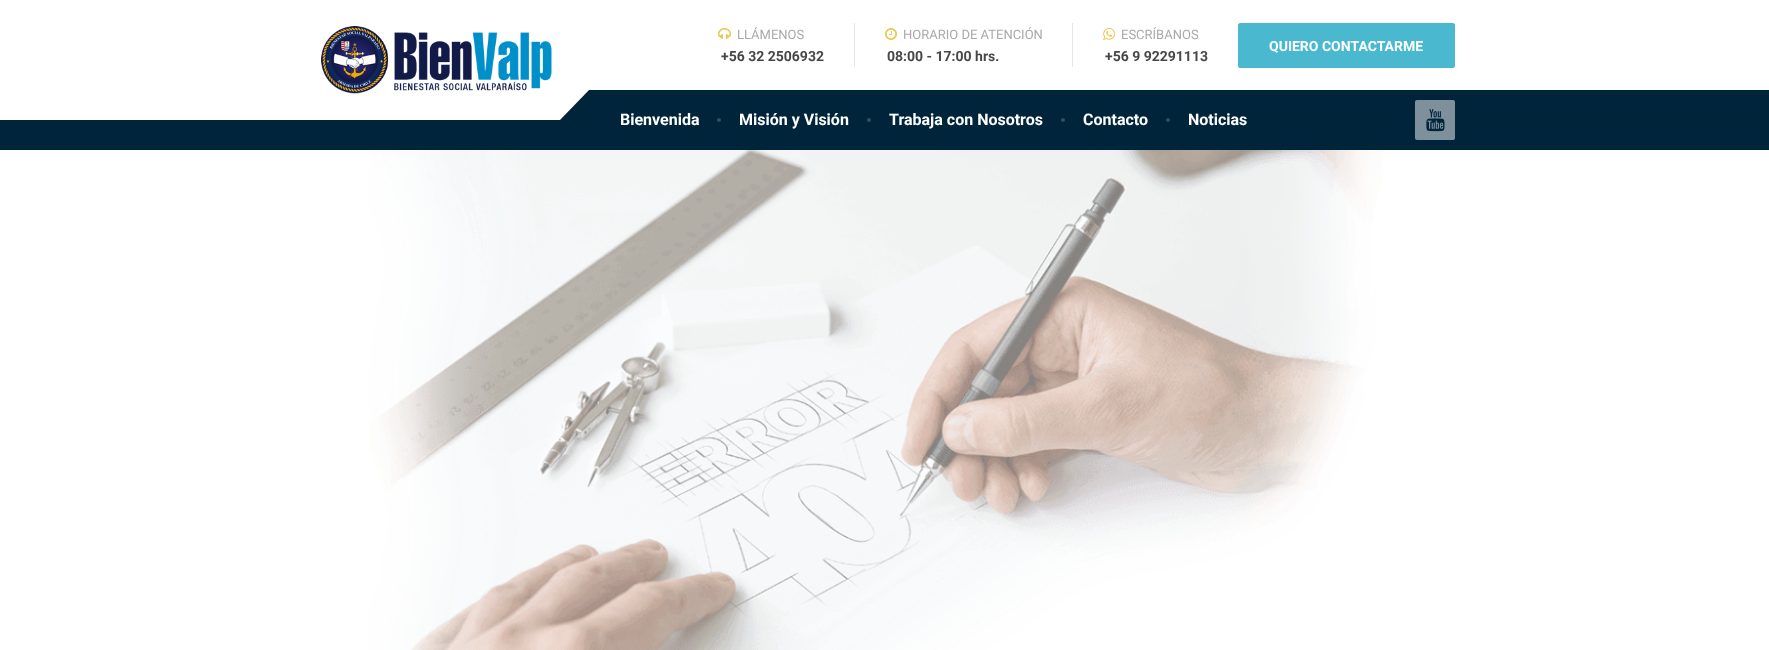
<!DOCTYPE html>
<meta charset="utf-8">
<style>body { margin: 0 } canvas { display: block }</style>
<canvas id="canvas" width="1769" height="650"></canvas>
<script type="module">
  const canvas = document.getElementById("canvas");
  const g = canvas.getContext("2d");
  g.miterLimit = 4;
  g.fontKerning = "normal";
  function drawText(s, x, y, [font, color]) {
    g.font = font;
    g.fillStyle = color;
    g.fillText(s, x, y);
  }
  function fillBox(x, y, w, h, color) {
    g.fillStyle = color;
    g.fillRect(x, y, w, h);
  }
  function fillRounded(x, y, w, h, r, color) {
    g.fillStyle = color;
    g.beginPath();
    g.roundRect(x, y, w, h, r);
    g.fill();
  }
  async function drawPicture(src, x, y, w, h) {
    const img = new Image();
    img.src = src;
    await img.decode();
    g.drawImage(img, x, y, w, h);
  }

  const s1 = ["13px Roboto", "#AAAAAA"];
  const s2 = ["bold 14px Roboto", "#474747"];
  const s3 = ["bold 14px Roboto", "#FFFFFF"];
  const s4 = ["bold 16px Roboto", "#FFFFFF"];

  fillBox(0, 0, 1769, 650, "#FFFFFF");
  fillBox(0, 90, 1769, 60, "#00253B");
  fillBox(0, 90, 560, 30, "#FFFFFF");
  g.beginPath();
  g.moveTo(590, 89);
  g.lineTo(560, 120);
  g.lineTo(530, 89);
  g.lineTo(560, 59);
  g.closePath();
  g.fill();
  await drawPicture("pic1.png", 321, 26, 231, 68);
  drawText("LLÁMENOS", 737, 39, s1);
  drawText("+56 32 2506932", 721, 61, s2);
  await drawPicture("pic2.png", 718, 28, 13, 11);
  fillBox(854, 23, 1, 44, "#E6E6E6");
  drawText("HORARIO DE ATENCIÓN", 903, 39, s1);
  drawText("08:00 - 17:00 hrs.", 887, 61, s2);
  await drawPicture("pic3.png", 885, 28, 12, 12);
  fillBox(1072, 23, 1, 44, "#E6E6E6");
  drawText("ESCRÍBANOS", 1121, 39, s1);
  drawText("+56 9 92291113", 1105, 61, s2);
  await drawPicture("pic4.png", 1103, 28, 12, 12);
  g.fillStyle = "#4AB9CF";
  g.beginPath();
  g.roundRect(1238.5, 23.5, 216, 44, 1.5);
  g.fill();
  g.strokeStyle = "#4AB9CF";
  g.stroke();
  drawText("QUIERO CONTACTARME", 1269, 51, s3);
  drawText("Bienvenida", 620, 125, s4);
  g.fillStyle = "#325061";
  g.beginPath();
  g.arc(719, 120, 2, 0, Math.PI * 2);
  g.fill();
  drawText("Misión y Visión", 739, 125, s4);
  g.fillStyle = "#325061";
  g.beginPath();
  g.arc(869, 120, 2, 0, Math.PI * 2);
  g.fill();
  drawText("Trabaja con Nosotros", 889, 125, s4);
  g.fillStyle = "#325061";
  g.beginPath();
  g.arc(1063, 120, 2, 0, Math.PI * 2);
  g.fill();
  drawText("Contacto", 1083, 125, s4);
  g.fillStyle = "#325061";
  g.beginPath();
  g.arc(1168, 120, 2, 0, Math.PI * 2);
  g.fill();
  drawText("Noticias", 1188, 125, s4);
  fillRounded(1415, 100, 40, 40, 2, "#7D909B");
  await drawPicture("pic5.png", 1426, 109, 19, 23);
  await drawPicture("pic6.png", 369, 150, 1014, 500);
</script>
